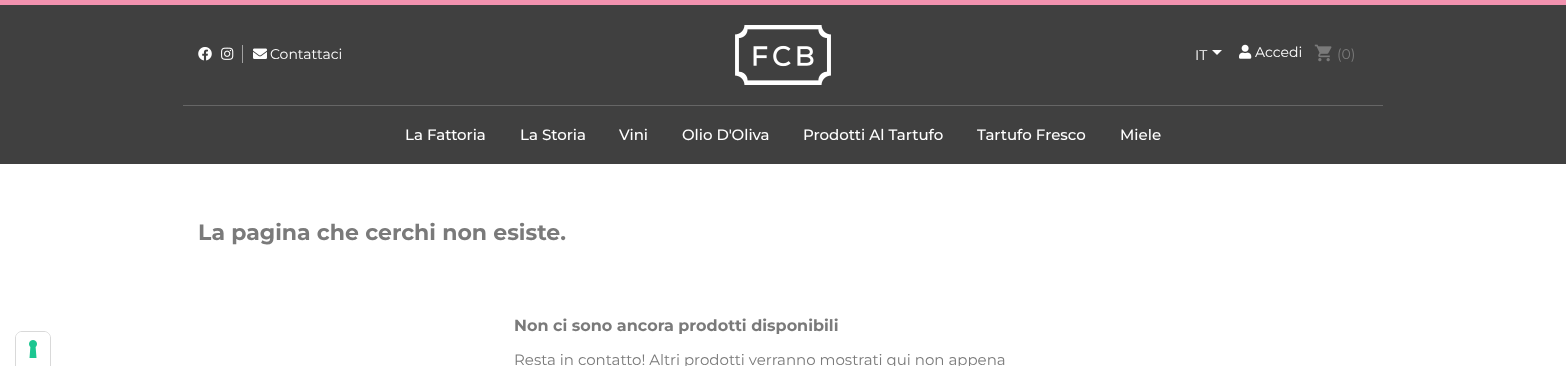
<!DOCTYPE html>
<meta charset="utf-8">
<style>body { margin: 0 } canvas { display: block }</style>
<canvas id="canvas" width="1566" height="366"></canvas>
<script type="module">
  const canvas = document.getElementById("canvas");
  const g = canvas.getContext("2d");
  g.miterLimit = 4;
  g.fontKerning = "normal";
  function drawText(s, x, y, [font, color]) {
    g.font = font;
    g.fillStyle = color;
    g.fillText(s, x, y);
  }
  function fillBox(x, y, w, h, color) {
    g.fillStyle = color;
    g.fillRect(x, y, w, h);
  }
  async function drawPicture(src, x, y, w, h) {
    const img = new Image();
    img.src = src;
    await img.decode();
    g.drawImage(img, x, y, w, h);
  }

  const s1 = ["14px Montserrat", "#FFFFFF"];
  const s2 = ["14px Montserrat", "#7A7A7A"];
  const s3 = ["500 15px Montserrat", "#FFFFFF"];
  const s4 = ["bold 22px Montserrat", "#7A7A7A"];
  const s5 = ["bold 16px Montserrat", "#7A7A7A"];
  const s6 = ["15px Montserrat", "#7A7A7A"];

  fillBox(0, 0, 1566, 366, "#FFFFFF");
  g.beginPath();
  g.moveTo(22, 331.5);
  g.lineTo(44, 331.5);
  g.bezierCurveTo(47.5, 331.5, 50.5, 334.5, 50.5, 338);
  g.lineTo(50.5, 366.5);
  g.lineTo(15.5, 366.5);
  g.lineTo(15.5, 338);
  g.bezierCurveTo(15.5, 334.5, 18.5, 331.5, 22, 331.5);
  g.closePath();
  g.strokeStyle = "#D9D9D9";
  g.stroke();
  g.beginPath();
  g.roundRect(16, 332, 34, 34, [6, 6, 0, 0]);
  g.fill();
  await drawPicture("pic1.png", 29, 340, 8, 18);
  fillBox(0, 5, 1566, 159, "#404040");
  fillBox(0, 0, 1566, 5, "#F292AF");
  await drawPicture("pic2.png", 198, 47, 14, 14);
  fillBox(242, 45, 1, 18, "#A1A1A1");
  await drawPicture("pic3.png", 221, 47, 13, 13);
  await drawPicture("pic4.png", 253, 48, 14, 11);
  drawText("Contattaci", 270, 59, s1);
  await drawPicture("pic5.png", 735, 25, 96, 60);
  drawText("IT", 1195, 60, s1);
  g.beginPath();
  g.moveTo(1212, 50);
  g.lineTo(1222, 50);
  g.lineTo(1217, 55);
  g.closePath();
  g.fill();
  await drawPicture("pic6.png", 1239, 44, 13, 15);
  drawText("Accedi", 1255, 57, s1);
  await drawPicture("pic7.png", 1314, 44, 18, 18);
  drawText("(0)", 1337, 59, s2);
  fillBox(183, 105, 1200, 1, "#666666");
  drawText("La Fattoria", 405, 140, s3);
  drawText("La Storia", 520, 140, s3);
  drawText("Vini", 619, 140, s3);
  drawText("Olio D'Oliva", 682, 140, s3);
  drawText("Prodotti Al Tartufo", 803, 140, s3);
  drawText("Tartufo Fresco", 977, 140, s3);
  drawText("Miele", 1120, 140, s3);
  drawText("La pagina che cerchi non esiste.", 198, 240, s4);
  drawText("Non ci sono ancora prodotti disponibili", 514, 331, s5);
  drawText("Resta in contatto! Altri prodotti verranno mostrati qui non appena", 514, 365, s6);
</script>
